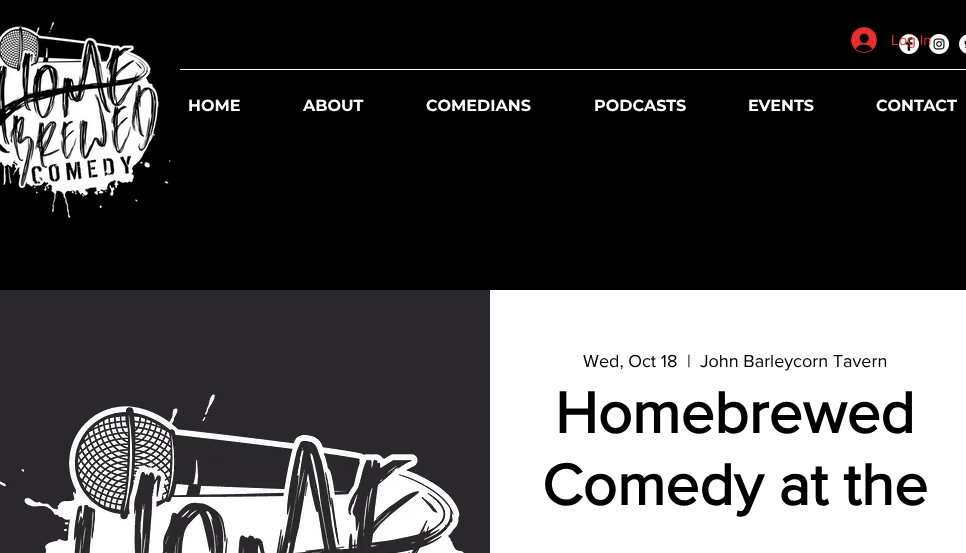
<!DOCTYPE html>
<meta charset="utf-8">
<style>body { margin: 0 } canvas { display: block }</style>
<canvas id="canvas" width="966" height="553"></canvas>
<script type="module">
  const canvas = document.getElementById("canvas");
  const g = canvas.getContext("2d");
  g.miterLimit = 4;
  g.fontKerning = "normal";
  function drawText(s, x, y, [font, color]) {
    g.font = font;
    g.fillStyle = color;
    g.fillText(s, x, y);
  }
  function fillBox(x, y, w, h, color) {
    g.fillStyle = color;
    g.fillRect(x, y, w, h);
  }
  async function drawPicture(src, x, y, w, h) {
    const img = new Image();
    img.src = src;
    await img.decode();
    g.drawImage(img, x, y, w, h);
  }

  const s1 = ["15px 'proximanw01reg'", "#EB2D2D"];
  const s2 = ["bold 16px Montserrat", "#FFFFFF"];
  const s3 = ["18px 'proximanw01reg'", "#000000"];
  const s4 = ["bold 60px 'proximanw01reg'", "#000000"];

  fillBox(0, 0, 966, 553, "#000000");
  await drawPicture("pic1.png", 851, 27, 26, 26);
  await drawPicture("pic3.png", 899, 34, 20, 20);
  await drawPicture("pic4.png", 929, 34, 20, 20);
  drawText("Log In", 891, 45, s1);
  await drawPicture("pic2.png", 0, 21, 171, 197);
  await drawPicture("pic5.png", 959, 34, 7, 20);
  fillBox(180, 69, 786, 1, "#FFFFFF");
  drawText("HOME", 188, 111, s2);
  drawText("ABOUT", 303, 111, s2);
  drawText("COMEDIANS", 426, 111, s2);
  drawText("PODCASTS", 594, 111, s2);
  drawText("EVENTS", 748, 111, s2);
  drawText("CONTACT", 876, 111, s2);
  await drawPicture("pic6.png", 0, 290, 490, 263);
  fillBox(490, 290, 476, 263, "#FFFFFF");
  drawText("Wed, Oct 18", 583, 367, s3);
  drawText("|", 687, 367, s3);
  drawText("John Barleycorn Tavern", 700, 367, s3);
  drawText("Homebrewed", 555, 433, s4);
  drawText("Comedy at the", 542, 505, s4);
</script>
